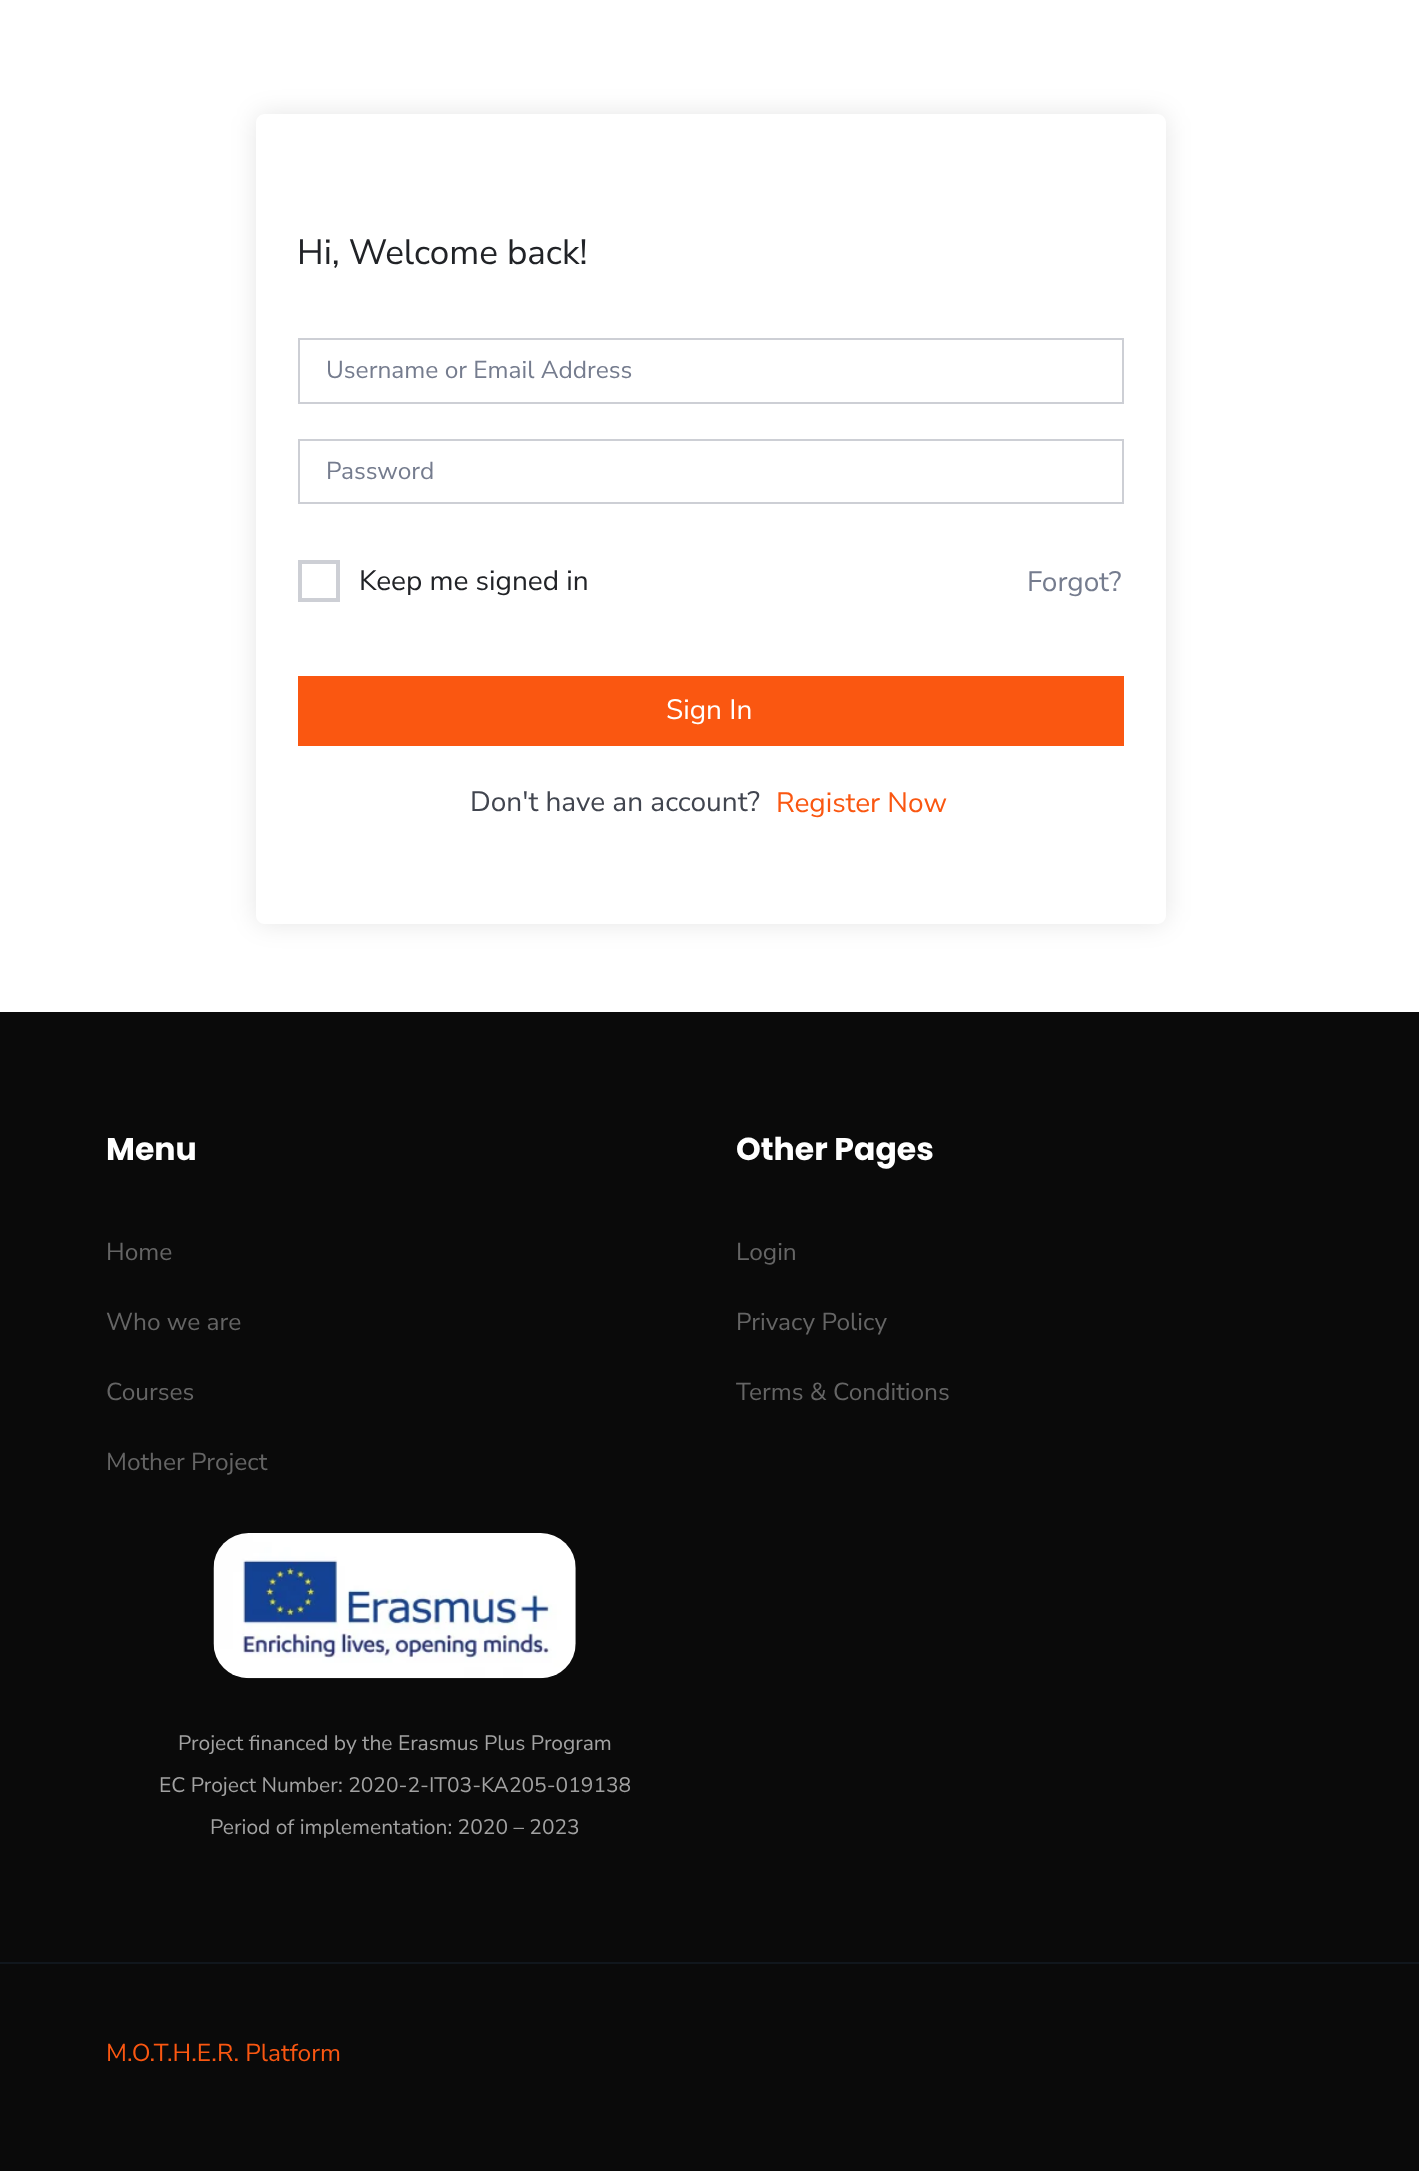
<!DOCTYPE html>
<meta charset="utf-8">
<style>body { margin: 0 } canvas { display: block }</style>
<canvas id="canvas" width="1419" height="2171"></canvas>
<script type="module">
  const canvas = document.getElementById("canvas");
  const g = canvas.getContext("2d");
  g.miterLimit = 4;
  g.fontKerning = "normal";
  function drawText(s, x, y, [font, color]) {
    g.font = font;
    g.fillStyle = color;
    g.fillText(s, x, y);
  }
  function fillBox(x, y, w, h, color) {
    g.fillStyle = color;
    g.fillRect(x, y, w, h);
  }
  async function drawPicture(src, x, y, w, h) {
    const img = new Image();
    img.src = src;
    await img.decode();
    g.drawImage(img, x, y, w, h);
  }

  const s1 = ["35px Nunito Sans", "#212327"];
  const s2 = ["24.5px Nunito Sans", "#757C8E"];
  const s3 = ["28px Nunito Sans", "#212327"];
  const s4 = ["28px Nunito Sans", "#757C8E"];
  const s5 = ["28px Nunito Sans", "#FFFFFF"];
  const s6 = ["28px Nunito Sans", "#41454F"];
  const s7 = ["28px Nunito Sans", "#FA5711"];
  const s8 = ["bold 31.5px Poppins", "#FFFFFF"];
  const s9 = ["24.5px Nunito Sans", "#656565"];
  const s10 = ["21px Nunito Sans", "#A2A2A2"];
  const s11 = ["24.5px Nunito Sans", "#FA5711"];

  fillBox(0, 0, 1419, 2171, "#FFFFFF");
  g.save();
  g.beginPath();
  g.moveTo(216, 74);
  g.lineTo(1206, 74);
  g.lineTo(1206, 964);
  g.lineTo(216, 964);
  g.closePath();
  g.moveTo(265, 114);
  g.lineTo(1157, 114);
  g.bezierCurveTo(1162, 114, 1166, 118, 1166, 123);
  g.lineTo(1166, 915);
  g.bezierCurveTo(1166, 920, 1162, 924, 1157, 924);
  g.lineTo(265, 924);
  g.bezierCurveTo(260, 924, 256, 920, 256, 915);
  g.lineTo(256, 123);
  g.bezierCurveTo(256, 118, 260, 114, 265, 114);
  g.closePath();
  g.clip("evenodd");
  g.fillStyle = "rgba(0, 0, 0, 0.1)";
  g.filter = "blur(13px)";
  g.beginPath();
  g.roundRect(256, 114, 910, 810, 9);
  g.fill();
  g.filter = "none";
  g.restore();
  drawText("Hi, Welcome back!", 297, 264, s1);
  g.strokeStyle = "#CDCFD5";
  g.lineWidth = 2;
  g.strokeRect(299, 339, 824, 64);
  drawText("Username or Email Address", 326, 378, s2);
  g.strokeRect(299, 440, 824, 63);
  drawText("Password", 326, 479, s2);
  g.lineWidth = 4;
  g.strokeRect(300, 562, 38, 38);
  drawText("Keep me signed in", 359, 590, s3);
  drawText("Forgot?", 1027, 591, s4);
  fillBox(298, 676, 826, 70, "#FA5711");
  drawText("Sign In", 666, 719, s5);
  drawText("Don't have an account?", 470, 811, s6);
  drawText("Register Now", 776, 812, s7);
  fillBox(0, 1012, 1419, 950, "#0A0A0A");
  drawText("Menu", 106, 1160, s8);
  drawText("Home", 106, 1260, s9);
  drawText("Who we are", 106, 1330, s9);
  drawText("Courses", 106, 1400, s9);
  drawText("Mother Project", 106, 1470, s9);
  drawText("Other Pages", 736, 1160, s8);
  drawText("Login", 736, 1260, s9);
  drawText("Privacy Policy", 736, 1330, s9);
  drawText("Terms & Conditions", 736, 1400, s9);
  await drawPicture("pic1.png", 213, 1533, 363, 146);
  drawText("Project financed by the Erasmus Plus Program", 178, 1750, s10);
  drawText("EC Project Number: 2020-2-IT03-KA205-019138", 159, 1792, s10);
  drawText("Period of implementation: 2020 – 2023", 210, 1834, s10);
  fillBox(0, 1964, 1419, 207, "#0A0A0A");
  fillBox(0, 1962, 1419, 2, "#11171D");
  drawText("M.O.T.H.E.R. Platform", 106, 2061, s11);
</script>
